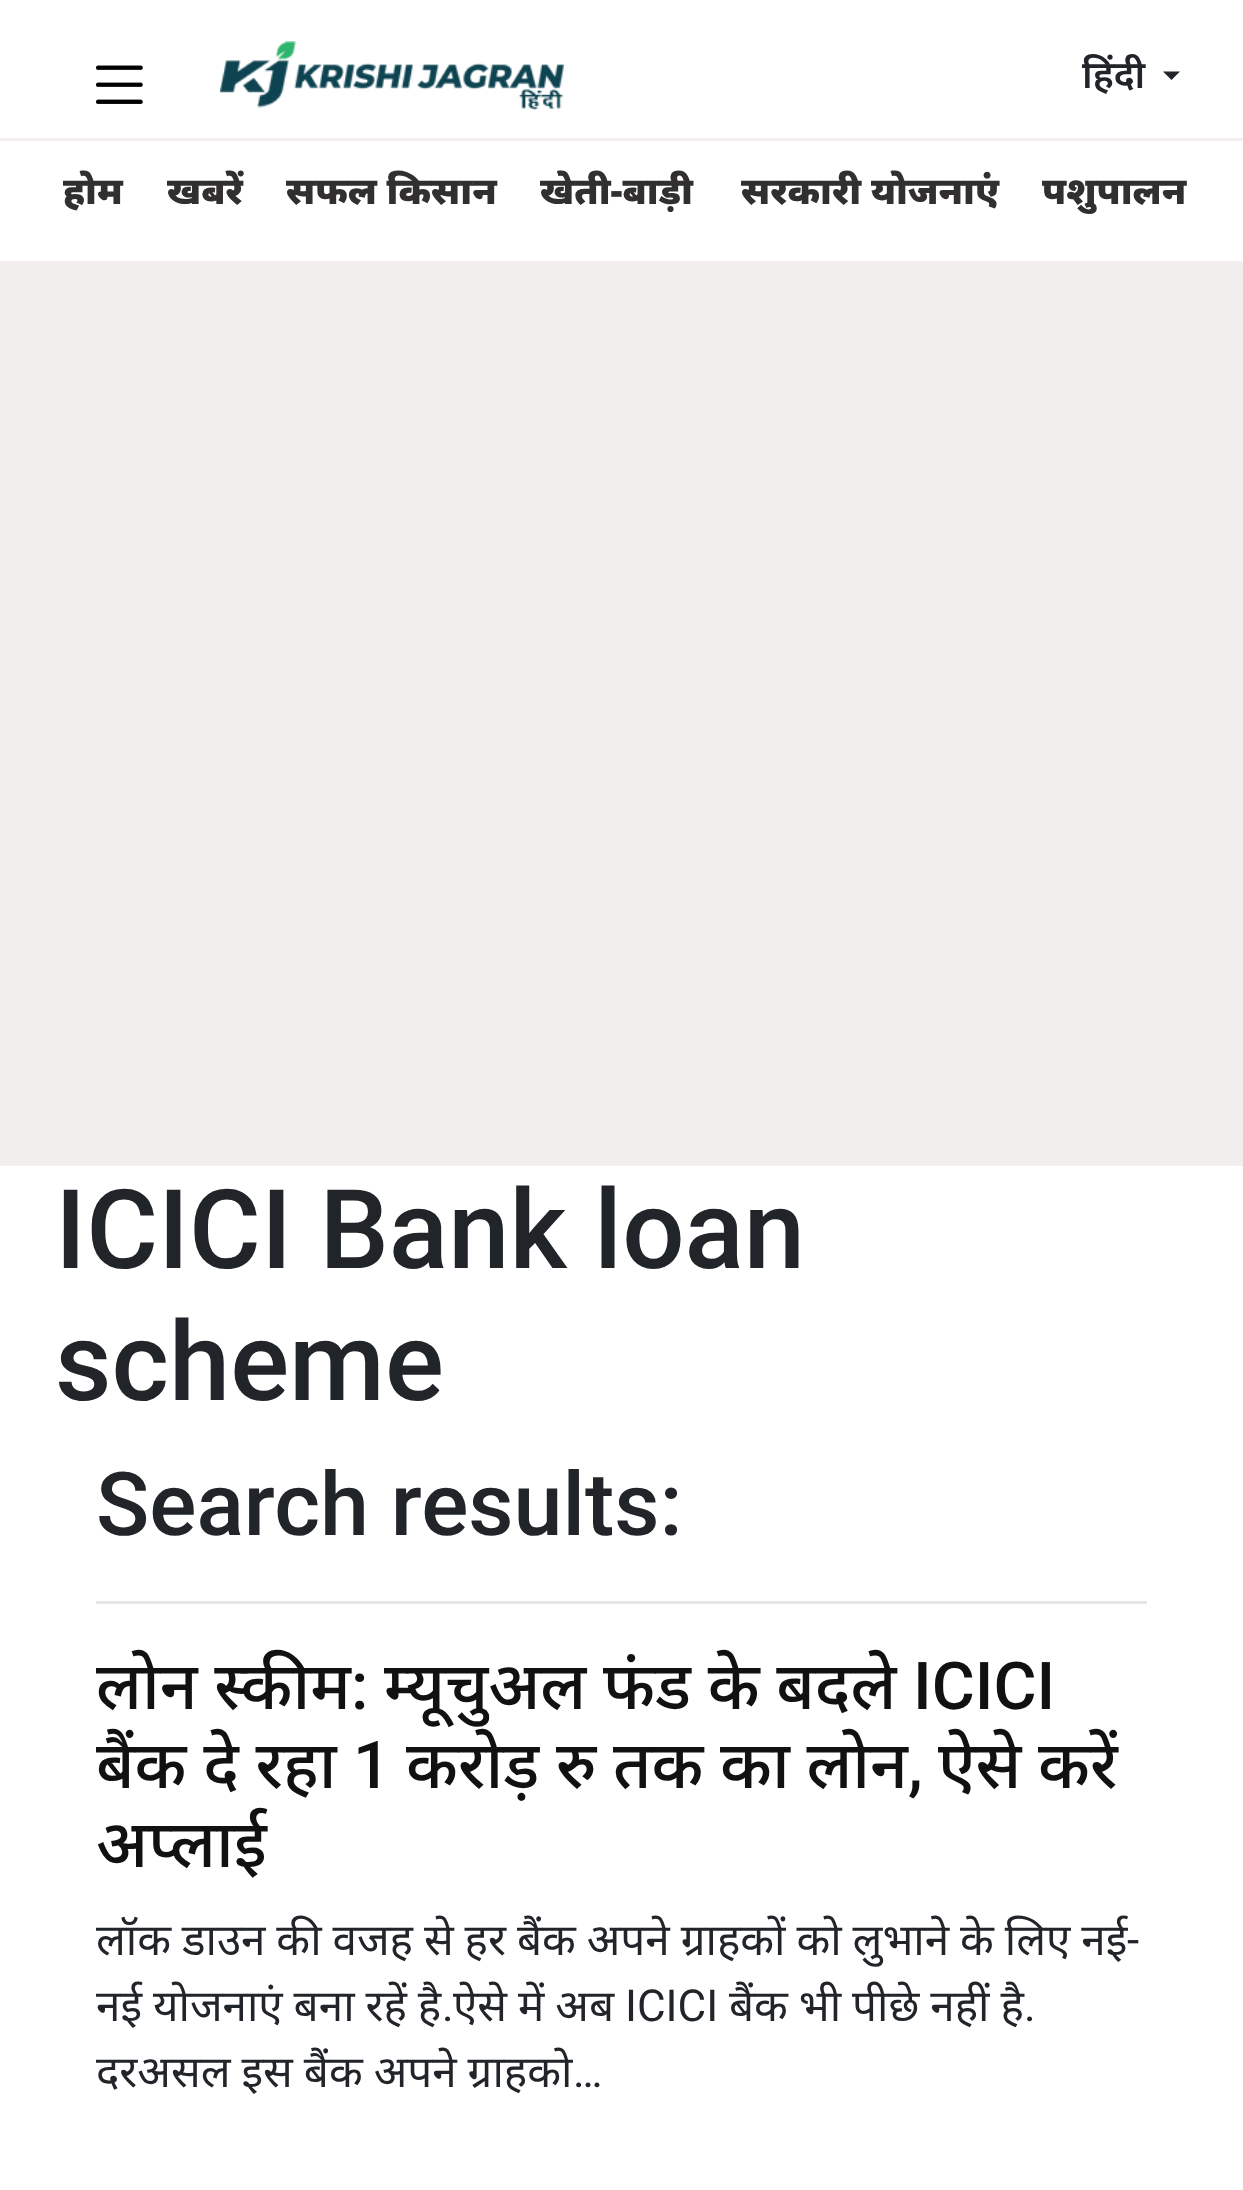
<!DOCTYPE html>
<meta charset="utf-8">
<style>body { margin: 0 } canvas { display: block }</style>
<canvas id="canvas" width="1243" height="2190"></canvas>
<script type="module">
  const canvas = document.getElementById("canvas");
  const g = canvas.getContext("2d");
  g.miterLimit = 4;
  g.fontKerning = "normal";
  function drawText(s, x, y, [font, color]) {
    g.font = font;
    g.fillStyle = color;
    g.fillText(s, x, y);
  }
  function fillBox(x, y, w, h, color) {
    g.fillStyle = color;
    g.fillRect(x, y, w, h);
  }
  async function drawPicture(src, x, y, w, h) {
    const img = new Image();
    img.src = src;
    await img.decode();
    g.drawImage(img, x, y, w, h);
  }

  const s1 = ["600 38px Noto Sans", "#212529"];
  const s2 = ["900 37.5px Noto Sans", "#312F2F"];
  const s3 = ["500 110px Roboto", "#212529"];
  const s4 = ["500 88px Roboto", "#212529"];
  const s5 = ["500 66px Noto Sans", "#111111"];
  const s6 = ["500 66px Roboto", "#111111"];
  const s7 = ["44px Noto Sans", "#212529"];
  const s8 = ["44px Roboto", "#212529"];

  fillBox(0, 0, 1243, 2190, "#FFFFFF");
  await drawPicture("pic1.png", 95, 65, 48, 39);
  await drawPicture("pic2.png", 220, 41, 344, 69);
  drawText("हिंदी", 1082, 88, s1);
  g.beginPath();
  g.moveTo(1163, 71.5);
  g.lineTo(1180, 71.5);
  g.lineTo(1171.5, 80);
  g.closePath();
  g.fill();
  fillBox(0, 138, 1243, 3, "#F3EFEF");
  drawText("होम", 63, 204, s2);
  drawText("खबरें", 167, 204, s2);
  drawText("सफल किसान", 286, 204, s2);
  drawText("खेती-बाड़ी", 540, 204, s2);
  drawText("सरकारी योजनाएं", 741, 204, s2);
  drawText("पशुपालन", 1042, 204, s2);
  fillBox(0, 261, 1243, 905, "#F1EEED");
  drawText("ICICI Bank loan", 55, 1268, s3);
  drawText("scheme", 55, 1400, s3);
  drawText("Search results:", 96, 1535, s4);
  fillBox(96, 1601, 1051, 3, "#E6E6E6");
  g.wordSpacing = "-0.5px";
  drawText("लोन स्कीम", 96, 1709, s5);
  g.wordSpacing = "0px";
  drawText(":", 351, 1709, s6);
  g.wordSpacing = "-0.5px";
  drawText("म्यूचुअल फंड के बदले", 384, 1709, s5);
  g.wordSpacing = "0px";
  drawText("ICICI", 913, 1709, s6);
  g.wordSpacing = "-0.5px";
  drawText("बैंक दे रहा", 96, 1788, s5);
  g.wordSpacing = "0px";
  drawText("1", 353, 1788, s6);
  g.wordSpacing = "-0.5px";
  drawText("करोड़ रु तक का लोन", 406, 1788, s5);
  g.wordSpacing = "0px";
  drawText(",", 908, 1788, s6);
  g.wordSpacing = "-0.5px";
  drawText("ऐसे करें", 938, 1788, s5);
  g.wordSpacing = "0px";
  drawText("अप्लाई", 96, 1867, s5);
  g.wordSpacing = "-0.5px";
  drawText("लॉक डाउन की वजह से हर बैंक अपने ग्राहकों को लुभाने के लिए नई", 96, 1955, s7);
  g.wordSpacing = "0px";
  drawText("-", 1127, 1955, s8);
  g.wordSpacing = "-0.5px";
  drawText("नई योजनाएं बना रहें है", 96, 2021, s7);
  g.wordSpacing = "0px";
  drawText(".", 442, 2021, s8);
  g.wordSpacing = "-0.5px";
  drawText("ऐसे में अब", 453, 2021, s7);
  g.wordSpacing = "0px";
  drawText("ICICI", 625, 2021, s8);
  g.wordSpacing = "-0.5px";
  drawText("बैंक भी पीछे नहीं है", 729, 2021, s7);
  g.wordSpacing = "0px";
  drawText(".", 1024, 2021, s8);
  g.wordSpacing = "-0.5px";
  drawText("दरअसल इस बैंक अपने ग्राहको", 96, 2087, s7);
  g.wordSpacing = "0px";
  drawText("…", 573, 2087, s8);
</script>
